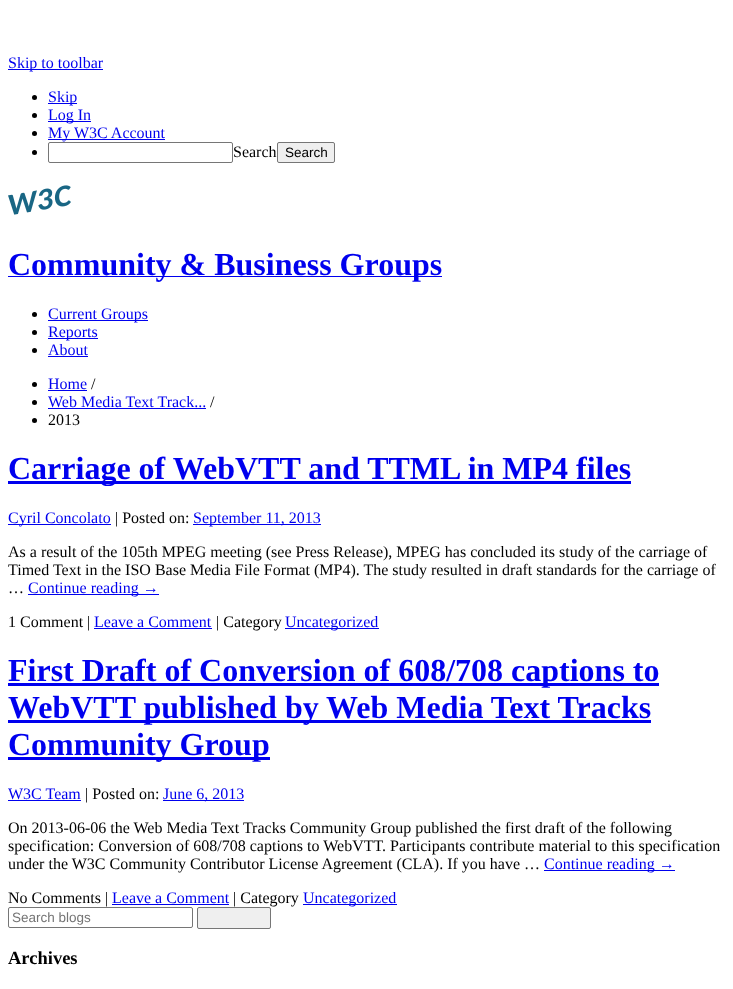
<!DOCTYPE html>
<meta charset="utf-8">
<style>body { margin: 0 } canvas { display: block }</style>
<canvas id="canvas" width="733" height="989"></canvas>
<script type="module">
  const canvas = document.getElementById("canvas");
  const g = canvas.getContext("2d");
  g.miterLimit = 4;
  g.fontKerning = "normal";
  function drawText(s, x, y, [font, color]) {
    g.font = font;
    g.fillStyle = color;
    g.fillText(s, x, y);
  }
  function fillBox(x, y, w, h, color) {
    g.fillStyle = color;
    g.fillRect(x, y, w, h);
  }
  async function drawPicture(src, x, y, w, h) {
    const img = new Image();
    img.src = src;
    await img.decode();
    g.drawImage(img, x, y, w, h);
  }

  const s1 = ["16px Liberation Serif", "#0000EE"];
  const s2 = ["16px Liberation Serif", "#000000"];
  const s3 = ["13.5px Liberation Sans", "#000000"];
  const s4 = ["bold 32px Liberation Serif", "#0000EE"];
  const s5 = ["13.5px Liberation Sans", "#757575"];
  const s6 = ["bold 18.5px Liberation Serif", "#000000"];

  fillBox(0, 0, 733, 989, "#FFFFFF");
  fillBox(8, 69, 95, 1, "#0000EE");
  drawText("Skip to toolbar", 8, 68, s1);
  g.fillStyle = "#000000";
  g.beginPath();
  g.arc(34.5, 97.5, 2.5, 0, Math.PI * 2);
  g.fill();
  fillBox(48, 103, 29, 1, "#0000EE");
  drawText("Skip", 48, 102, s1);
  g.fillStyle = "#000000";
  g.beginPath();
  g.arc(34.5, 115.5, 2.5, 0, Math.PI * 2);
  g.fill();
  fillBox(48, 121, 43, 1, "#0000EE");
  drawText("Log In", 48, 120, s1);
  g.fillStyle = "#000000";
  g.beginPath();
  g.arc(34.5, 133.5, 2.5, 0, Math.PI * 2);
  g.fill();
  fillBox(48, 139, 117, 1, "#0000EE");
  drawText("My W3C Account", 48, 138, s1);
  g.fillStyle = "#000000";
  g.beginPath();
  g.arc(34.5, 152.5, 2.5, 0, Math.PI * 2);
  g.fill();
  g.beginPath();
  g.roundRect(48.5, 142.5, 184, 20, 1.5);
  g.strokeStyle = "#767676";
  g.stroke();
  drawText("Search", 233, 157, s2);
  g.fillStyle = "#EFEFEF";
  g.beginPath();
  g.roundRect(277.5, 142.5, 57, 20, 1.5);
  g.fill();
  g.stroke();
  drawText("Search", 285, 157, s3);
  await drawPicture("pic1.png", 8, 185, 63, 30);
  fillBox(8, 276, 434, 1, "#0000EE");
  drawText("Community & Business Groups", 8, 275, s4);
  g.fillStyle = "#000000";
  g.beginPath();
  g.arc(34.5, 314.5, 2.5, 0, Math.PI * 2);
  g.fill();
  fillBox(48, 320, 100, 1, "#0000EE");
  drawText("Current Groups", 48, 319, s1);
  g.fillStyle = "#000000";
  g.beginPath();
  g.arc(34.5, 332.5, 2.5, 0, Math.PI * 2);
  g.fill();
  fillBox(48, 338, 50, 1, "#0000EE");
  drawText("Reports", 48, 337, s1);
  g.fillStyle = "#000000";
  g.beginPath();
  g.arc(34.5, 350.5, 2.5, 0, Math.PI * 2);
  g.fill();
  drawText("About", 48, 355, s1);
  fillBox(48, 356, 40, 1, "#0000EE");
  g.fillStyle = "#000000";
  g.beginPath();
  g.arc(34.5, 384.5, 2.5, 0, Math.PI * 2);
  g.fill();
  drawText("Home", 48, 389, s1);
  fillBox(48, 390, 39, 1, "#0000EE");
  drawText("/", 91, 389, s2);
  g.beginPath();
  g.arc(34.5, 402.5, 2.5, 0, Math.PI * 2);
  g.fill();
  drawText("Web Media Text Track...", 48, 407, s1);
  fillBox(48, 408, 158, 1, "#0000EE");
  drawText("/", 210, 407, s2);
  g.beginPath();
  g.arc(34.5, 420.5, 2.5, 0, Math.PI * 2);
  g.fill();
  drawText("2013", 48, 425, s2);
  fillBox(8, 481, 623, 3, "#0000EE");
  drawText("Carriage of WebVTT and TTML in MP4 files", 8, 479, s4);
  fillBox(8, 524, 103, 1, "#0000EE");
  drawText("Cyril Concolato", 8, 523, s1);
  drawText("| Posted on:", 115, 523, s2);
  fillBox(193, 524, 128, 1, "#0000EE");
  drawText("September 11, 2013", 193, 523, s1);
  drawText("As a result of the 105th MPEG meeting (see Press Release), MPEG has concluded its study of the carriage of", 8, 557, s2);
  drawText("Timed Text in the ISO Base Media File Format (MP4). The study resulted in draft standards for the carriage of", 8, 575, s2);
  drawText("…", 8, 593, s2);
  fillBox(28, 594, 131, 1, "#0000EE");
  drawText("Continue reading →", 28, 593, s1);
  drawText("1 Comment |", 8, 627, s2);
  drawText("Leave a Comment", 94, 627, s1);
  fillBox(94, 628, 118, 1, "#0000EE");
  drawText("| Category", 216, 627, s2);
  fillBox(285, 628, 94, 1, "#0000EE");
  drawText("Uncategorized", 285, 627, s1);
  fillBox(8, 683, 651, 3, "#0000EE");
  drawText("First Draft of Conversion of 608/708 captions to", 8, 681, s4);
  fillBox(8, 720, 643, 3, "#0000EE");
  drawText("WebVTT published by Web Media Text Tracks", 8, 718, s4);
  fillBox(8, 757, 262, 3, "#0000EE");
  drawText("Community Group", 8, 755, s4);
  drawText("W3C Team", 8, 799, s1);
  fillBox(8, 800, 73, 1, "#0000EE");
  drawText("| Posted on:", 85, 799, s2);
  fillBox(163, 800, 81, 1, "#0000EE");
  drawText("June 6, 2013", 163, 799, s1);
  drawText("On 2013-06-06 the Web Media Text Tracks Community Group published the first draft of the following", 8, 833, s2);
  drawText("specification: Conversion of 608/708 captions to WebVTT. Participants contribute material to this specification", 8, 851, s2);
  drawText("under the W3C Community Contributor License Agreement (CLA). If you have …", 8, 869, s2);
  fillBox(544, 870, 131, 1, "#0000EE");
  drawText("Continue reading →", 544, 869, s1);
  drawText("No Comments |", 8, 903, s2);
  drawText("Leave a Comment", 112, 903, s1);
  fillBox(112, 904, 117, 1, "#0000EE");
  drawText("| Category", 233, 903, s2);
  fillBox(303, 904, 94, 1, "#0000EE");
  drawText("Uncategorized", 303, 903, s1);
  g.beginPath();
  g.roundRect(8.5, 907.5, 184, 20, 1.5);
  g.stroke();
  drawText("Search blogs", 12, 922, s5);
  g.fillStyle = "#EFEFEF";
  g.beginPath();
  g.roundRect(197.5, 907.5, 73, 21, 1.5);
  g.fill();
  g.stroke();
  drawText("Archives", 8, 964, s6);
</script>
